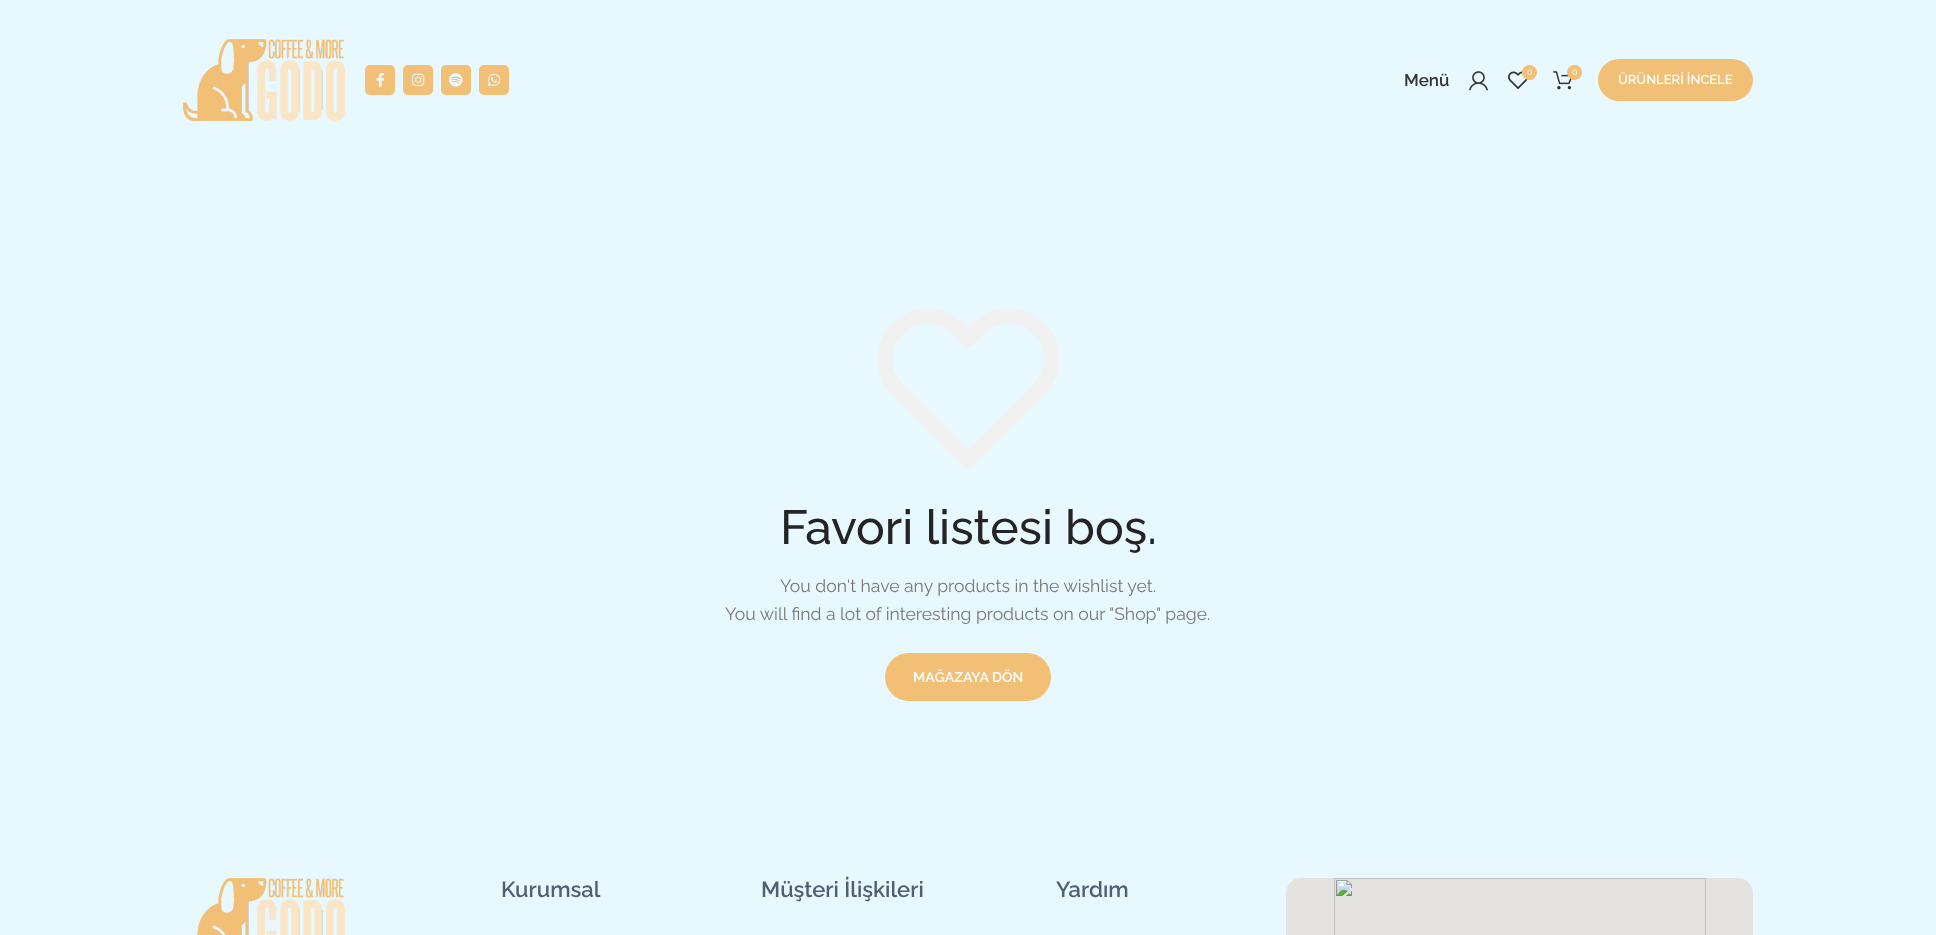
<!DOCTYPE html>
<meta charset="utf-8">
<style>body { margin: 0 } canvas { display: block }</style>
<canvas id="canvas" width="1936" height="935"></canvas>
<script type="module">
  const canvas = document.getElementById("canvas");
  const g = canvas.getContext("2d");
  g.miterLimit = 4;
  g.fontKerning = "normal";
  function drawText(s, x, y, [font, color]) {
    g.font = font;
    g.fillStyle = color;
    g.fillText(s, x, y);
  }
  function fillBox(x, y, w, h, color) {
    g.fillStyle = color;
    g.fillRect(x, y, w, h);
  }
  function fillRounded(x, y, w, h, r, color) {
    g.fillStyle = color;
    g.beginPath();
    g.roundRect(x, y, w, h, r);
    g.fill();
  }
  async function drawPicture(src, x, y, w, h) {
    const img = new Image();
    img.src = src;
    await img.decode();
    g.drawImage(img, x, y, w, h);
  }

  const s1 = ["600 17px Raleway", "#333333"];
  const s2 = ["9px Raleway", "#FFFFFF"];
  const s3 = ["600 13px Raleway", "#FFFFFF"];
  const s4 = ["500 48px Raleway", "#242424"];
  const s5 = ["17.6px Raleway", "#777777"];
  const s6 = ["600 14px Raleway", "#FFFFFF"];
  const s7 = ["600 22px Raleway", "#525E72"];

  fillBox(0, 0, 1936, 935, "#E8F8FF");
  await drawPicture("pic1.png", 183, 39, 162, 82);
  fillRounded(365, 65, 30, 30, 5, "#F1BF76");
  await drawPicture("pic2.png", 376, 72, 9, 15);
  fillRounded(403, 65, 30, 30, 5, "#F1BF76");
  await drawPicture("pic3.png", 412, 73, 13, 13);
  fillRounded(441, 65, 30, 30, 5, "#F1BF76");
  await drawPicture("pic4.png", 449, 73, 14, 14);
  fillRounded(479, 65, 30, 30, 5, "#F1BF76");
  await drawPicture("pic5.png", 488, 73, 13, 13);
  drawText("Menü", 1404, 86, s1);
  await drawPicture("pic6.png", 1469, 71, 19, 20);
  await drawPicture("pic7.png", 1508, 71, 20, 18);
  g.fillStyle = "#F1BF75";
  g.beginPath();
  g.arc(1529.5, 72.5, 7.5, 0, Math.PI * 2);
  g.fill();
  drawText("0", 1527, 75, s2);
  await drawPicture("pic8.png", 1553, 71, 19, 19);
  g.fillStyle = "#F1BF75";
  g.beginPath();
  g.arc(1574.5, 72.5, 7.5, 0, Math.PI * 2);
  g.fill();
  drawText("0", 1572, 75, s2);
  fillRounded(1598, 59, 155, 42, 21, "#F1BF75");
  drawText("ÜRÜNLERİ İNCELE", 1618, 84, s3);
  await drawPicture("pic9.png", 877, 308, 183, 160);
  drawText("Favori listesi boş.", 780, 544, s4);
  drawText("You don't have any products in the wishlist yet.", 780, 592, s5);
  drawText("You will find a lot of interesting products on our \"Shop\" page.", 725, 620, s5);
  fillRounded(885, 653, 166, 48, 24, "#F1BF75");
  drawText("MAĞAZAYA DÖN", 913, 682, s6);
  await drawPicture("pic10.png", 197, 878, 148, 57);
  drawText("Kurumsal", 501, 897, s7);
  drawText("Müşteri İlişkileri", 761, 897, s7);
  drawText("Yardım", 1056, 897, s7);
  await drawPicture("pic11.png", 1286, 878, 467, 57);
</script>
